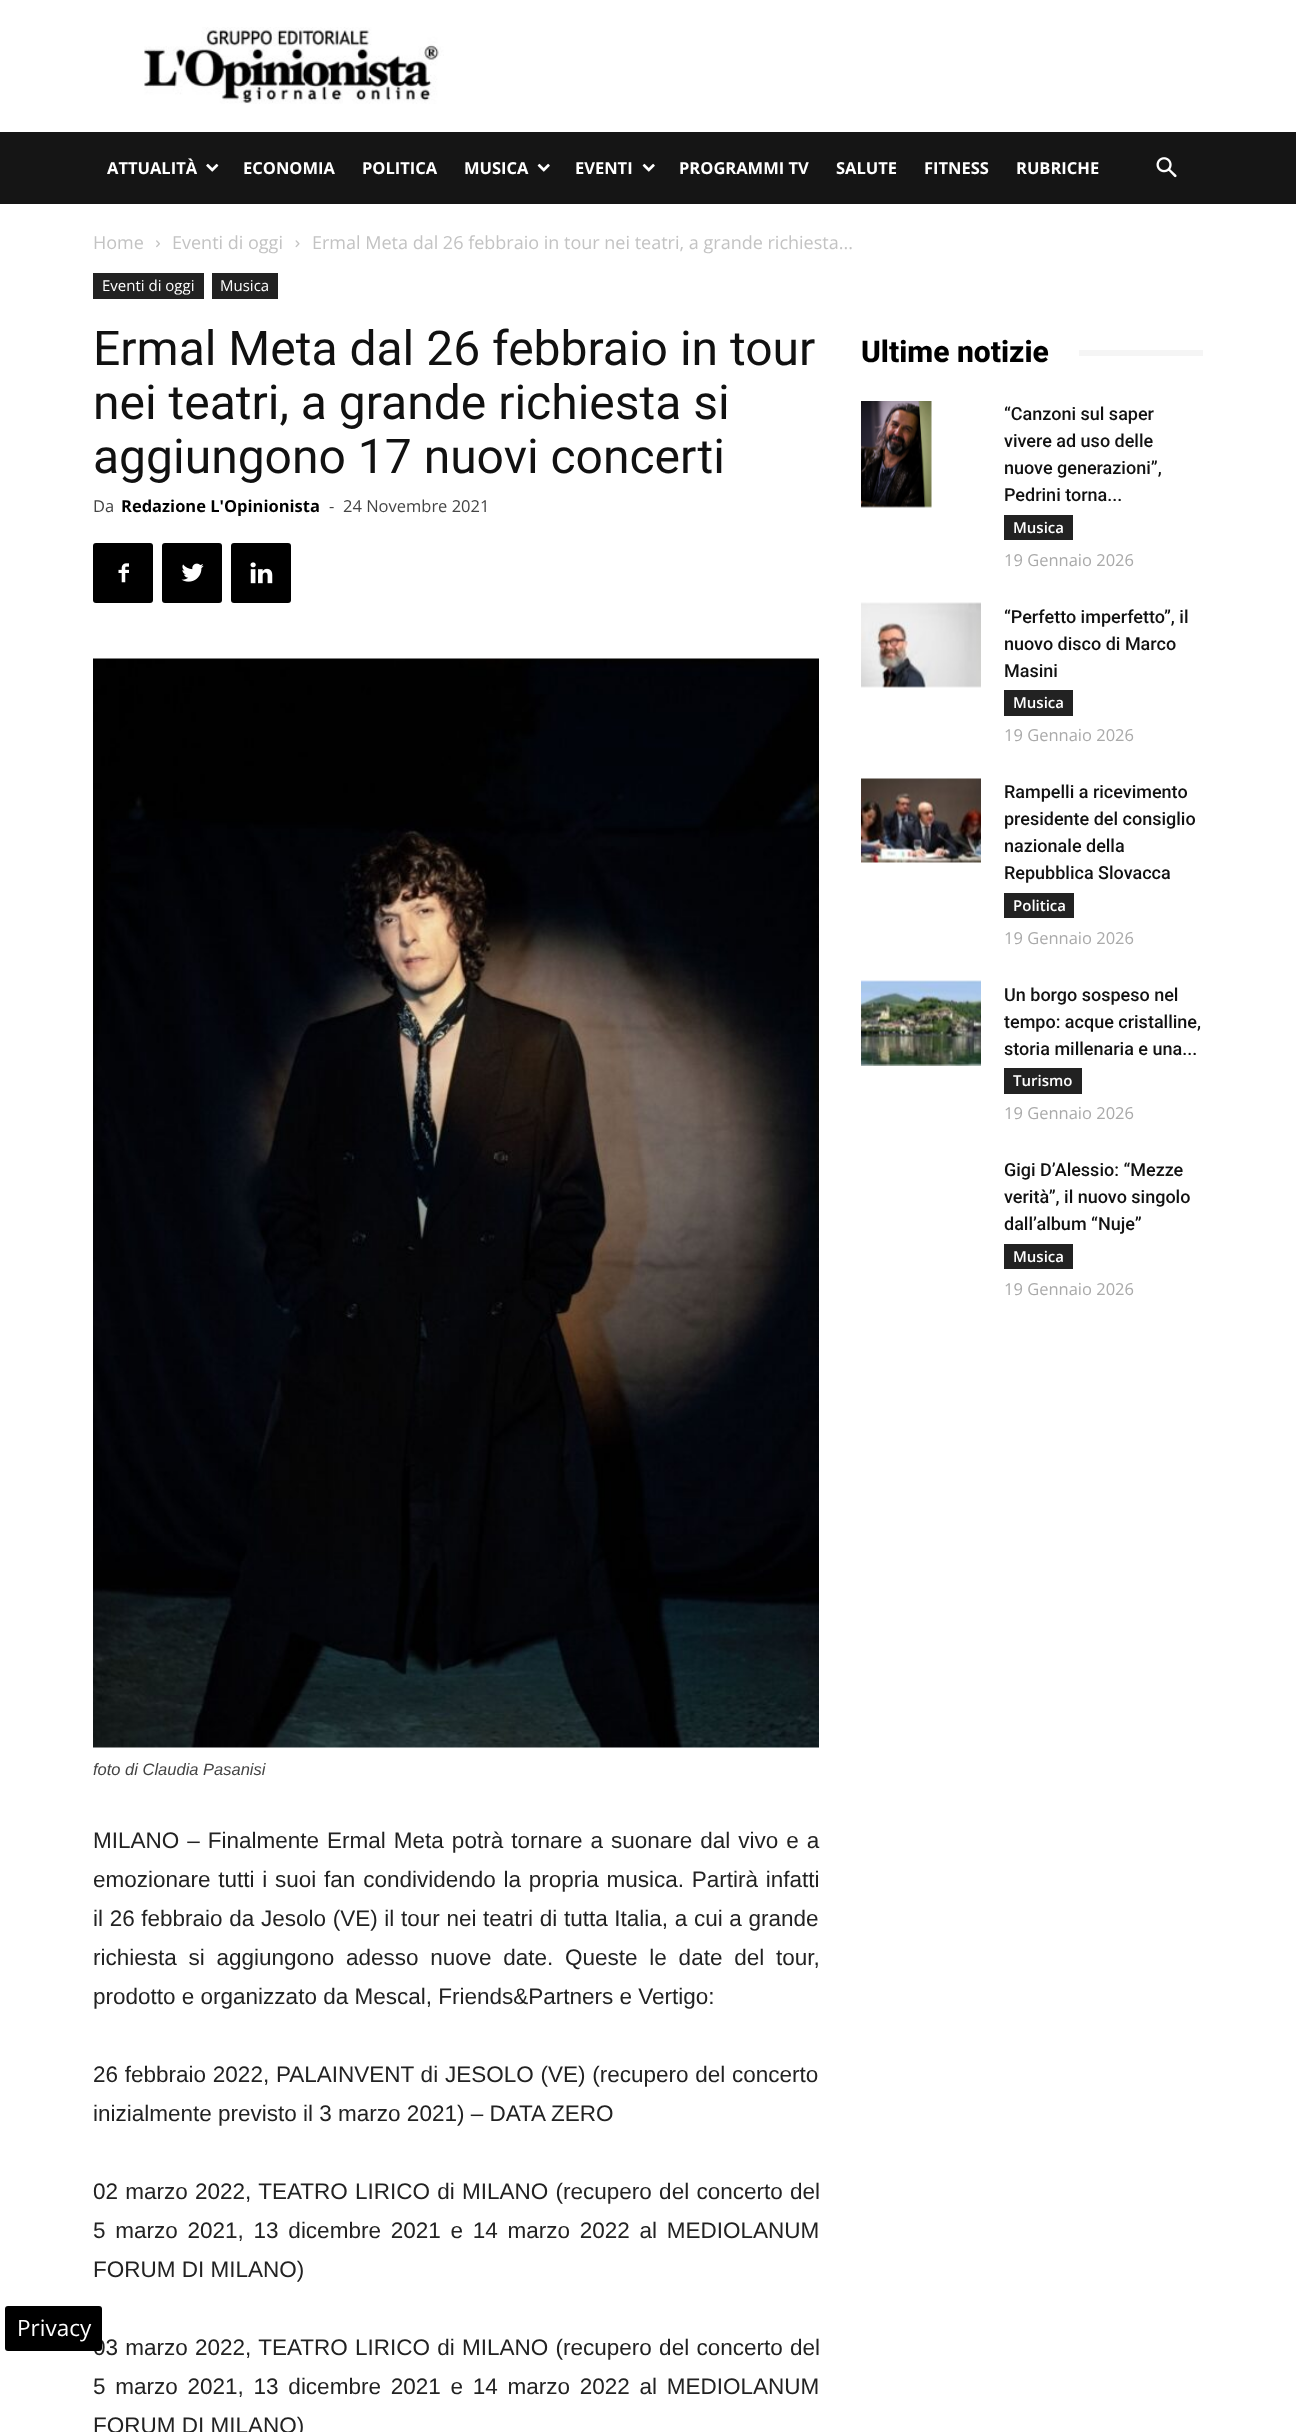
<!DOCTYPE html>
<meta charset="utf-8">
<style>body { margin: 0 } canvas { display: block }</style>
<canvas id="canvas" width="1296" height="2432"></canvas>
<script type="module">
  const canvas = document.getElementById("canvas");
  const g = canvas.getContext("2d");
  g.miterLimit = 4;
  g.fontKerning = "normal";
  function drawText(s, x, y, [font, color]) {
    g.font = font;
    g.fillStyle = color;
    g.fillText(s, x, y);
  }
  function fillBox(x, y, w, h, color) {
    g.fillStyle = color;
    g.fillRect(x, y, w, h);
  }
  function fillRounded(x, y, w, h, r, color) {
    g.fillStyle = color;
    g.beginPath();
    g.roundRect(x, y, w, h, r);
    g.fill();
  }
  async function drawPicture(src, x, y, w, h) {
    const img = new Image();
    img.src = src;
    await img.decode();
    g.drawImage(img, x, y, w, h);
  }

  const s1 = ["bold 16.5px Open Sans", "#FFFFFF"];
  const s2 = ["22.5px Liberation Sans", "#222222"];
  const s3 = ["22.5px Open Sans", "#FFFFFF"];
  const s4 = ["18px Open Sans", "#C3C3C3"];
  const s5 = ["15px Open Sans", "#FFFFFF"];
  const s6 = ["48px Roboto", "#111111"];
  const s7 = ["16.5px Open Sans", "#444444"];
  const s8 = ["bold 16.5px Open Sans", "#000000"];
  const s9 = ["italic 16.5px Liberation Sans", "#444444"];
  const s10 = ["800 30px Roboto", "#000000"];
  const s11 = ["500 18px Roboto", "#111111"];
  const s12 = ["600 15px Open Sans", "#FFFFFF"];
  const s13 = ["16.5px Open Sans", "#AAAAAA"];

  fillBox(0, 0, 1296, 2432, "#FFFFFF");
  await drawPicture("pic1.png", 144, 27, 300, 77);
  fillBox(0, 132, 1296, 72, "#151515");
  drawText("ATTUALITÀ", 107, 174, s1);
  await drawPicture("pic2.png", 206, 163, 13, 9);
  drawText("ECONOMIA", 243, 174, s1);
  drawText("POLITICA", 362, 174, s1);
  drawText("MUSICA", 464, 174, s1);
  await drawPicture("pic3.png", 537, 163, 13, 9);
  drawText("EVENTI", 575, 174, s1);
  await drawPicture("pic3.png", 642, 163, 13, 9);
  drawText("PROGRAMMI TV", 679, 174, s1);
  drawText("SALUTE", 836, 174, s1);
  drawText("FITNESS", 924, 174, s1);
  drawText("RUBRICHE", 1016, 174, s1);
  await drawPicture("pic4.png", 1156, 157, 21, 21);
  g.wordSpacing = "1px";
  drawText("03 marzo 2022, TEATRO LIRICO di MILANO (recupero del concerto del", 93, 2355, s2);
  fillRounded(5, 2306, 97, 45, 3, "#000000");
  g.wordSpacing = "0px";
  drawText("Privacy", 17, 2336, s3);
  drawText("Home", 93, 249, s4);
  await drawPicture("pic5.png", 156, 240, 4, 8);
  drawText("Eventi di oggi", 172, 249, s4);
  await drawPicture("pic6.png", 295, 240, 5, 8);
  drawText("Ermal Meta dal 26 febbraio in tour nei teatri, a grande richiesta...", 312, 249, s4);
  fillBox(93, 273, 111, 26, "#222222");
  drawText("Eventi di oggi", 102, 291, s5);
  fillBox(212, 273, 66, 26, "#222222");
  drawText("Musica", 220, 291, s5);
  drawText("Ermal Meta dal 26 febbraio in tour", 93, 365, s6);
  drawText("nei teatri, a grande richiesta si", 93, 419, s6);
  drawText("aggiungono 17 nuovi concerti", 93, 473, s6);
  drawText("Da", 93, 512, s7);
  drawText("Redazione L'Opinionista", 121, 512, s8);
  drawText("-", 329, 512, s7);
  drawText("24 Novembre 2021", 343, 512, s7);
  fillRounded(93, 543, 60, 60, 3, "#000000");
  await drawPicture("pic7.png", 118, 563, 11, 20);
  fillRounded(162, 543, 60, 60, 3, "#000000");
  await drawPicture("pic8.png", 181, 563, 23, 19);
  fillRounded(231, 543, 60, 60, 3, "#000000");
  await drawPicture("pic9.png", 250, 562, 23, 22);
  await drawPicture("pic10.png", 93, 658, 726, 1090);
  drawText("foto di Claudia Pasanisi", 93, 1775, s9);
  g.wordSpacing = "1.75px";
  drawText("MILANO – Finalmente Ermal Meta potrà tornare a suonare dal vivo e a", 93, 1848, s2);
  g.wordSpacing = "1.5px";
  drawText("emozionare tutti i suoi fan condividendo la propria musica. Partirà infatti", 93, 1887, s2);
  g.wordSpacing = "0.4px";
  drawText("il 26 febbraio da Jesolo (VE) il tour nei teatri di tutta Italia, a cui a grande", 93, 1926, s2);
  g.wordSpacing = "5.5px";
  drawText("richiesta si aggiungono adesso nuove date. Queste le date del tour,", 93, 1965, s2);
  g.wordSpacing = "0px";
  drawText("prodotto e organizzato da Mescal, Friends&Partners e Vertigo:", 93, 2004, s2);
  g.wordSpacing = "0.5px";
  drawText("26 febbraio 2022, PALAINVENT di JESOLO (VE) (recupero del concerto", 93, 2082, s2);
  g.wordSpacing = "0px";
  drawText("inizialmente previsto il 3 marzo 2021) – DATA ZERO", 93, 2121, s2);
  g.wordSpacing = "1px";
  drawText("02 marzo 2022, TEATRO LIRICO di MILANO (recupero del concerto del", 93, 2199, s2);
  g.wordSpacing = "3.5px";
  drawText("5 marzo 2021, 13 dicembre 2021 e 14 marzo 2022 al MEDIOLANUM", 93, 2238, s2);
  g.wordSpacing = "0px";
  drawText("FORUM DI MILANO)", 93, 2277, s2);
  g.wordSpacing = "3.5px";
  drawText("5 marzo 2021, 13 dicembre 2021 e 14 marzo 2022 al MEDIOLANUM", 93, 2394, s2);
  g.wordSpacing = "0px";
  drawText("FORUM DI MILANO)", 93, 2433, s2);
  drawText("Ultime notizie", 861, 362, s10);
  fillBox(1079, 350, 124, 6, "#F5F5F5");
  await drawPicture("pic11.png", 861, 401, 71, 107);
  drawText("“Canzoni sul saper", 1004, 420, s11);
  drawText("vivere ad uso delle", 1004, 447, s11);
  drawText("nuove generazioni”,", 1004, 474, s11);
  drawText("Pedrini torna...", 1004, 501, s11);
  fillBox(1004, 515, 69, 25, "#222222");
  drawText("Musica", 1013, 533, s12);
  drawText("19 Gennaio 2026", 1004, 566, s13);
  await drawPicture("pic12.png", 861, 602, 120, 86);
  drawText("“Perfetto imperfetto”, il", 1004, 623, s11);
  drawText("nuovo disco di Marco", 1004, 650, s11);
  drawText("Masini", 1004, 677, s11);
  fillBox(1004, 690, 69, 26, "#222222");
  drawText("Musica", 1013, 708, s12);
  drawText("19 Gennaio 2026", 1004, 741, s13);
  await drawPicture("pic13.png", 861, 778, 120, 85);
  drawText("Rampelli a ricevimento", 1004, 798, s11);
  drawText("presidente del consiglio", 1004, 825, s11);
  drawText("nazionale della", 1004, 852, s11);
  drawText("Repubblica Slovacca", 1004, 879, s11);
  fillBox(1004, 893, 70, 25, "#222222");
  drawText("Politica", 1013, 911, s12);
  drawText("19 Gennaio 2026", 1004, 944, s13);
  await drawPicture("pic14.png", 861, 980, 120, 86);
  drawText("Un borgo sospeso nel", 1004, 1001, s11);
  drawText("tempo: acque cristalline,", 1004, 1028, s11);
  drawText("storia millenaria e una...", 1004, 1055, s11);
  fillBox(1004, 1068, 78, 26, "#222222");
  drawText("Turismo", 1013, 1086, s12);
  drawText("19 Gennaio 2026", 1004, 1119, s13);
  drawText("Gigi D’Alessio: “Mezze", 1004, 1176, s11);
  drawText("verità”, il nuovo singolo", 1004, 1203, s11);
  drawText("dall’album “Nuje”", 1004, 1230, s11);
  fillBox(1004, 1244, 69, 25, "#222222");
  drawText("Musica", 1013, 1262, s12);
  drawText("19 Gennaio 2026", 1004, 1295, s13);
</script>
